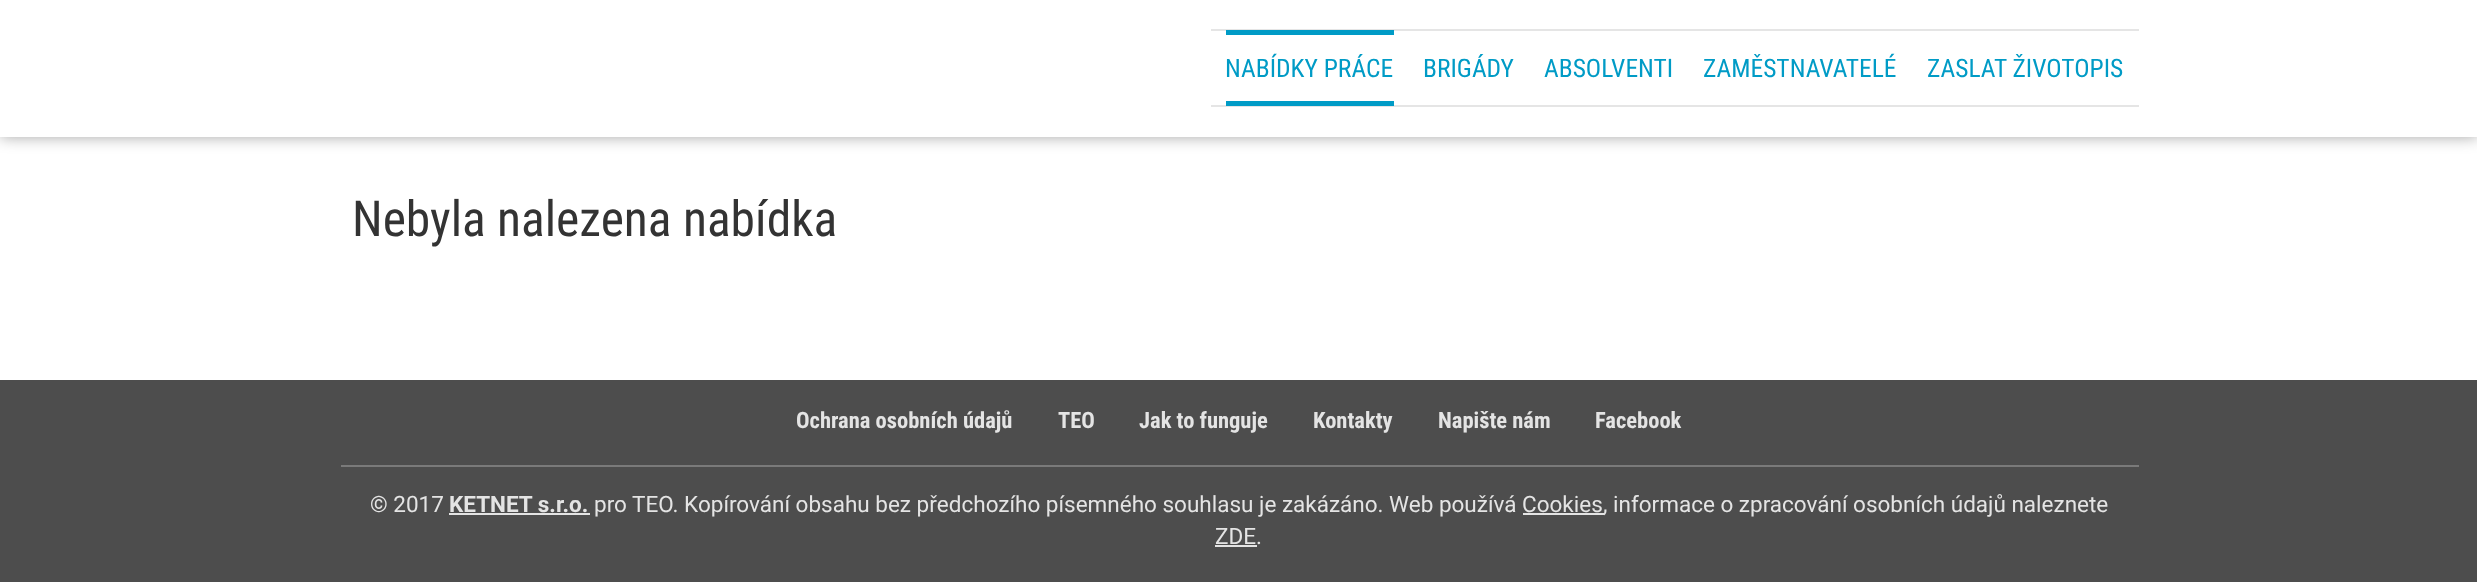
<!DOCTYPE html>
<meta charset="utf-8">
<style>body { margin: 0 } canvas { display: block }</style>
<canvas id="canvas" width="2477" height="582"></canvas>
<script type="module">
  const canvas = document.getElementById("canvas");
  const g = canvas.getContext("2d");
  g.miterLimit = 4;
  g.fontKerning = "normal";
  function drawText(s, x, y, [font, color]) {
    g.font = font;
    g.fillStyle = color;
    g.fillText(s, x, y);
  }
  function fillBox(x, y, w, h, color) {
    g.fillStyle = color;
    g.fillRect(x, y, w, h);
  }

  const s1 = ["25.5px Roboto Condensed", "#009BC6"];
  const s2 = ["49.5px Roboto Condensed", "#333333"];
  const s3 = ["bold 22.5px Roboto Condensed", "#E4E4E4"];
  const s4 = ["22.5px Roboto", "#E4E4E4"];
  const s5 = ["bold 22.5px Roboto", "#E4E4E4"];

  fillBox(0, 0, 2477, 582, "#FFFFFF");
  g.fillStyle = "rgba(0, 0, 0, 0.35)";
  g.filter = "blur(7.5px)";
  g.beginPath();
  g.rect(0, 0, 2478, 137);
  g.fill();
  g.filter = "none";
  fillBox(0, 0, 2477, 137, "#FFFFFF");
  fillBox(1211, 29, 928, 2, "#E5E5E5");
  fillBox(1211, 105, 928, 2, "#E5E5E5");
  drawText("NABÍDKY PRÁCE", 1225, 77, s1);
  fillBox(1226, 30, 168, 5, "#009BC6");
  fillBox(1226, 101, 168, 5, "#009BC6");
  drawText("BRIGÁDY", 1423, 77, s1);
  drawText("ABSOLVENTI", 1544, 77, s1);
  drawText("ZAMĚSTNAVATELÉ", 1703, 77, s1);
  drawText("ZASLAT ŽIVOTOPIS", 1927, 77, s1);
  drawText("Nebyla nalezena nabídka", 352, 236, s2);
  fillBox(0, 380, 2477, 202, "#4D4D4D");
  fillBox(341, 465, 1798, 2, "#7A7A7A");
  drawText("Ochrana osobních údajů", 796, 428, s3);
  drawText("TEO", 1058, 428, s3);
  drawText("Jak to funguje", 1139, 428, s3);
  drawText("Kontakty", 1313, 428, s3);
  drawText("Napište nám", 1438, 428, s3);
  drawText("Facebook", 1595, 428, s3);
  drawText("© 2017", 370, 512, s4);
  drawText("KETNET s.r.o.", 449, 512, s5);
  fillBox(449, 513, 141, 2, "#E4E4E4");
  drawText("pro TEO. Kopírování obsahu bez předchozího písemného souhlasu je zakázáno. Web používá Cookies", 594, 512, s4);
  fillBox(1523, 513, 81, 2, "#E4E4E4");
  drawText(", informace o zpracování osobních údajů naleznete", 1603, 512, s4);
  drawText("ZDE.", 1215, 544, s4);
  fillBox(1215, 545, 42, 2, "#E4E4E4");
</script>
